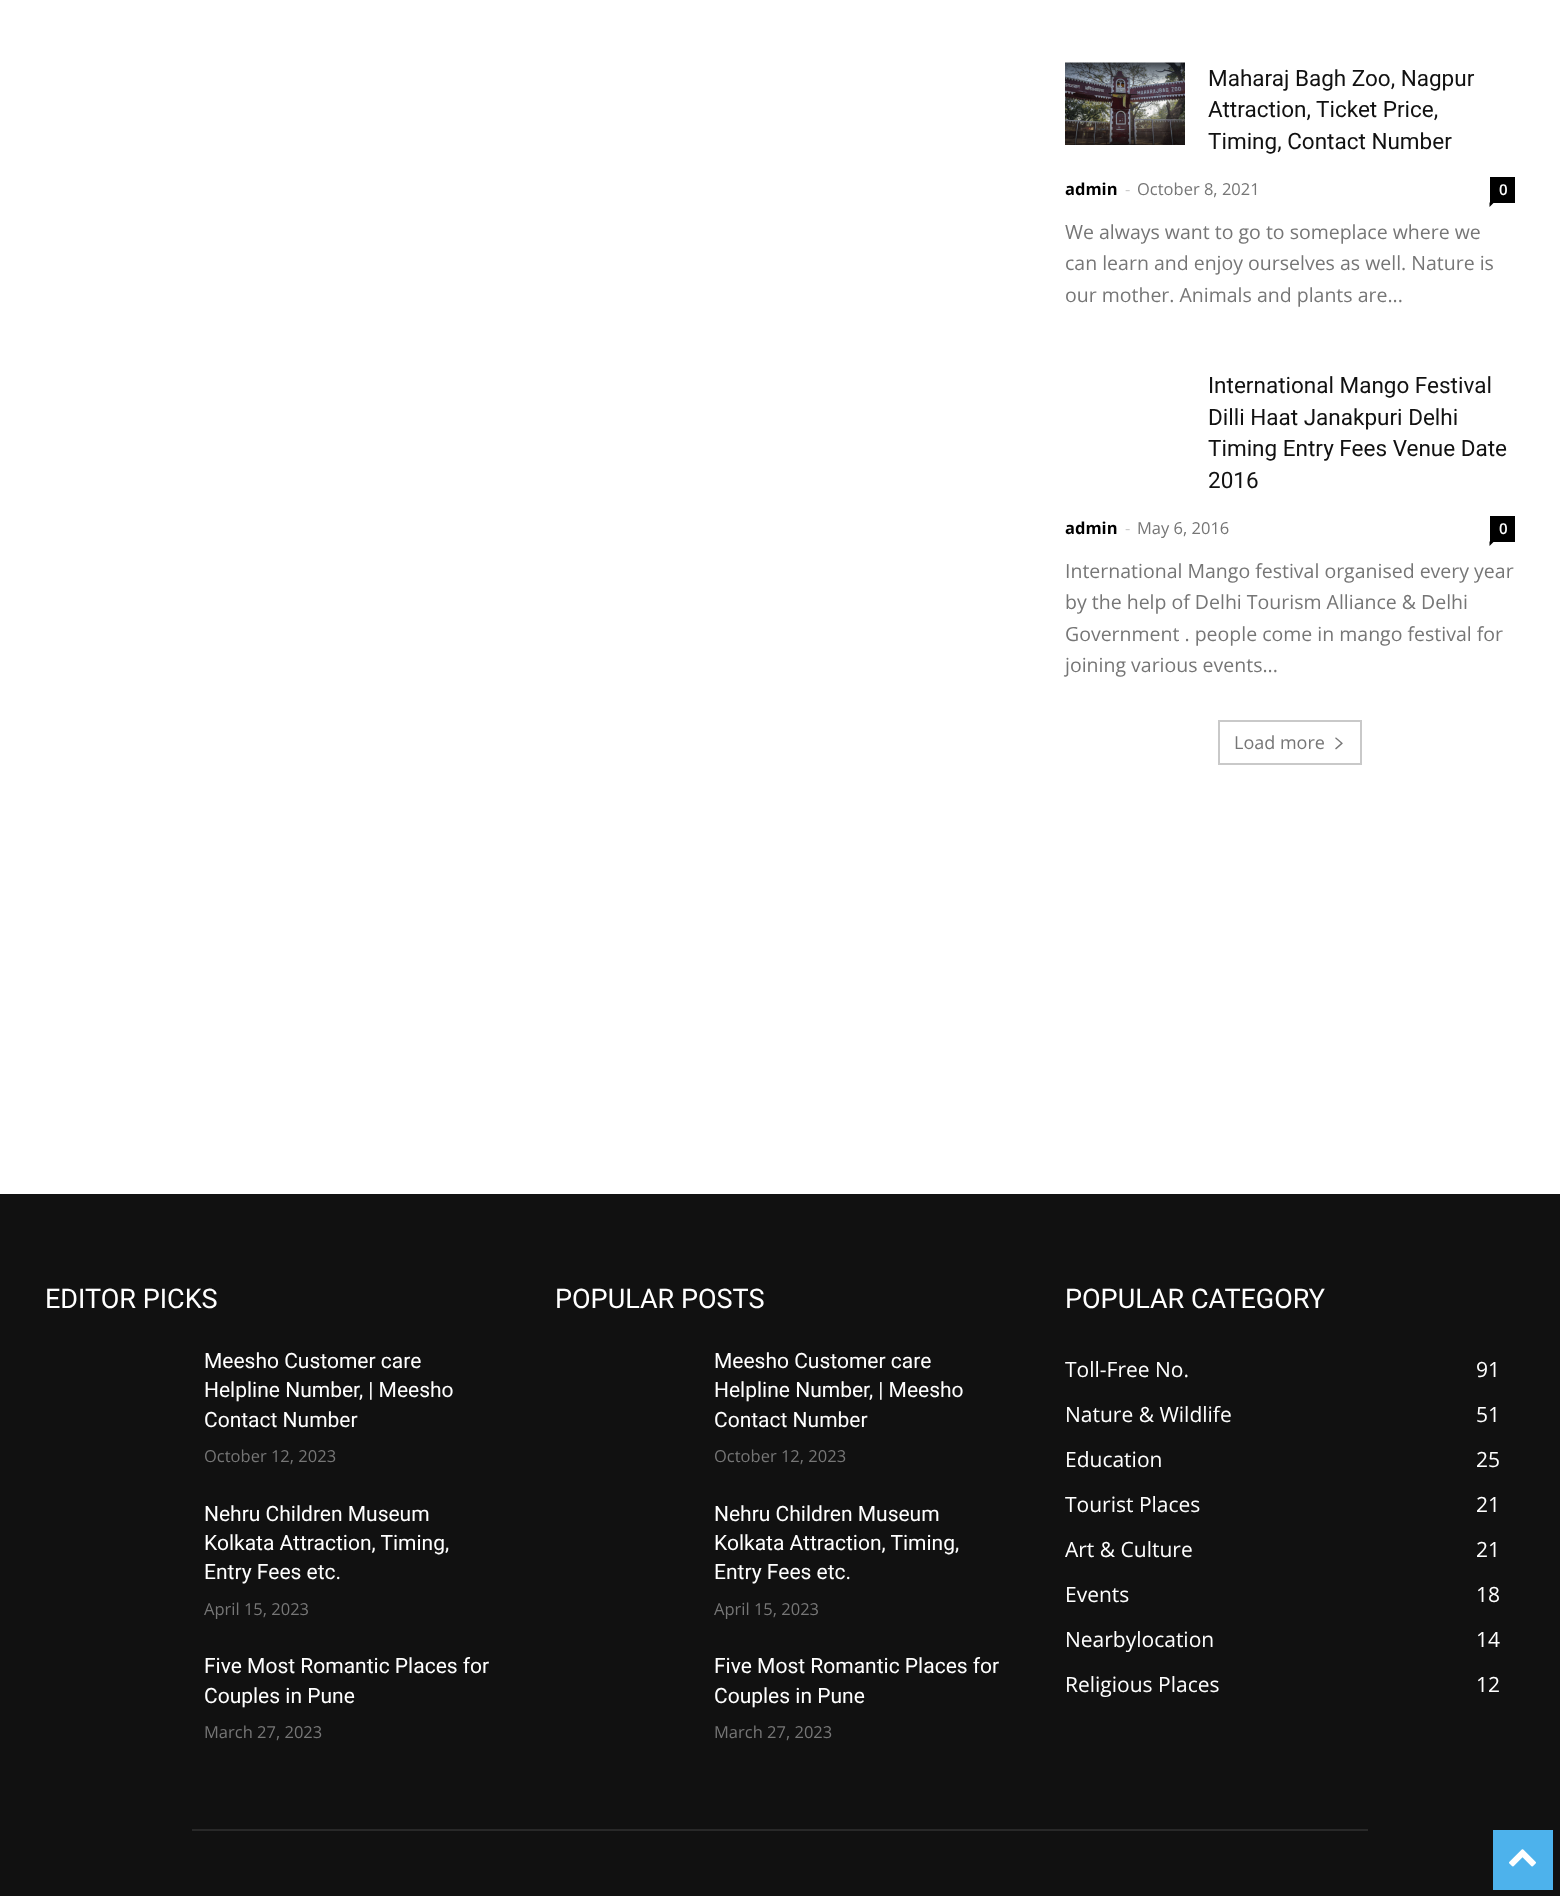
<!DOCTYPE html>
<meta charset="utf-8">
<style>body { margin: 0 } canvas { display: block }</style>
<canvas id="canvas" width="1560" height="1896"></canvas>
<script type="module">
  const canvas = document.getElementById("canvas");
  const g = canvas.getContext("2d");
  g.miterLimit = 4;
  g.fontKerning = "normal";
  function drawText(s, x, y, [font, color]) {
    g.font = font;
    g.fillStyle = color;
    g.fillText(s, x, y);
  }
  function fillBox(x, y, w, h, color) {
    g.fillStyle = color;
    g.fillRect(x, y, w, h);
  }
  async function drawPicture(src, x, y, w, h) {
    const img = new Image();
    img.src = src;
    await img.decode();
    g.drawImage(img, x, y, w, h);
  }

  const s1 = ["22.5px Roboto", "#111111"];
  const s2 = ["bold 16.5px Open Sans", "#000000"];
  const s3 = ["16.5px Open Sans", "#CCCCCC"];
  const s4 = ["16.5px Open Sans", "#767676"];
  const s5 = ["600 15px Open Sans", "#FFFFFF"];
  const s6 = ["19.5px Open Sans", "#767676"];
  const s7 = ["18px Open Sans", "#767676"];
  const s8 = ["27px Roboto", "#FFFFFF"];
  const s9 = ["21px Roboto", "#FFFFFF"];
  const s10 = ["21px Open Sans", "#FFFFFF"];

  fillBox(0, 0, 1560, 1896, "#FFFFFF");
  await drawPicture("pic1.png", 1065, 62, 120, 83);
  drawText("Maharaj Bagh Zoo, Nagpur", 1208, 86, s1);
  drawText("Attraction, Ticket Price,", 1208, 117, s1);
  drawText("Timing, Contact Number", 1208, 149, s1);
  drawText("admin", 1065, 195, s2);
  drawText("-", 1125, 195, s3);
  drawText("October 8, 2021", 1137, 195, s4);
  fillBox(1490, 177, 25, 26, "#000000");
  drawText("0", 1499, 195, s5);
  g.fillStyle = "#000000";
  g.beginPath();
  g.moveTo(1489.5, 202.5);
  g.lineTo(1494, 202.5);
  g.lineTo(1489.5, 207);
  g.closePath();
  g.fill();
  drawText("We always want to go to someplace where we", 1065, 239, s6);
  drawText("can learn and enjoy ourselves as well. Nature is", 1065, 270, s6);
  drawText("our mother. Animals and plants are...", 1065, 302, s6);
  drawText("International Mango Festival", 1208, 393, s1);
  drawText("Dilli Haat Janakpuri Delhi", 1208, 425, s1);
  drawText("Timing Entry Fees Venue Date", 1208, 456, s1);
  drawText("2016", 1208, 488, s1);
  drawText("admin", 1065, 534, s2);
  drawText("-", 1125, 534, s3);
  drawText("May 6, 2016", 1137, 534, s4);
  fillBox(1490, 516, 25, 26, "#000000");
  drawText("0", 1499, 534, s5);
  g.fillStyle = "#000000";
  g.beginPath();
  g.moveTo(1489.5, 541.5);
  g.lineTo(1494, 541.5);
  g.lineTo(1489.5, 546);
  g.closePath();
  g.fill();
  drawText("International Mango festival organised every year", 1065, 578, s6);
  drawText("by the help of Delhi Tourism Alliance & Delhi", 1065, 609, s6);
  drawText("Government . people come in mango festival for", 1065, 641, s6);
  drawText("joining various events...", 1065, 672, s6);
  g.strokeStyle = "#C9C9C9";
  g.lineWidth = 2;
  g.strokeRect(1219, 721, 142, 43);
  drawText("Load more", 1234, 749, s7);
  await drawPicture("pic2.png", 1335, 737, 8, 13);
  fillBox(0, 1194, 1560, 702, "#111111");
  drawText("EDITOR PICKS", 45, 1308, s8);
  drawText("Meesho Customer care", 204, 1368, s9);
  drawText("Helpline Number, | Meesho", 204, 1397, s9);
  drawText("Contact Number", 204, 1427, s9);
  drawText("October 12, 2023", 204, 1462, s4);
  drawText("Nehru Children Museum", 204, 1521, s9);
  drawText("Kolkata Attraction, Timing,", 204, 1550, s9);
  drawText("Entry Fees etc.", 204, 1579, s9);
  drawText("April 15, 2023", 204, 1615, s4);
  drawText("Five Most Romantic Places for", 204, 1673, s9);
  drawText("Couples in Pune", 204, 1703, s9);
  drawText("March 27, 2023", 204, 1738, s4);
  drawText("POPULAR POSTS", 555, 1308, s8);
  drawText("Meesho Customer care", 714, 1368, s9);
  drawText("Helpline Number, | Meesho", 714, 1397, s9);
  drawText("Contact Number", 714, 1427, s9);
  drawText("October 12, 2023", 714, 1462, s4);
  drawText("Nehru Children Museum", 714, 1521, s9);
  drawText("Kolkata Attraction, Timing,", 714, 1550, s9);
  drawText("Entry Fees etc.", 714, 1579, s9);
  drawText("April 15, 2023", 714, 1615, s4);
  drawText("Five Most Romantic Places for", 714, 1673, s9);
  drawText("Couples in Pune", 714, 1703, s9);
  drawText("March 27, 2023", 714, 1738, s4);
  drawText("POPULAR CATEGORY", 1065, 1308, s8);
  drawText("Toll-Free No.", 1065, 1377, s10);
  drawText("91", 1476, 1377, s10);
  drawText("Nature & Wildlife", 1065, 1422, s10);
  drawText("51", 1476, 1422, s10);
  drawText("Education", 1065, 1467, s10);
  drawText("25", 1476, 1467, s10);
  drawText("Tourist Places", 1065, 1512, s10);
  drawText("21", 1476, 1512, s10);
  drawText("Art & Culture", 1065, 1557, s10);
  drawText("21", 1476, 1557, s10);
  drawText("Events", 1065, 1602, s10);
  drawText("18", 1476, 1602, s10);
  drawText("Nearbylocation", 1065, 1647, s10);
  drawText("14", 1476, 1647, s10);
  drawText("Religious Places", 1065, 1692, s10);
  drawText("12", 1476, 1692, s10);
  fillBox(192, 1829, 1176, 2, "#292929");
  fillBox(1493, 1830, 60, 60, "#4DB2EC");
  await drawPicture("pic3.png", 1509, 1849, 27, 18);
</script>
